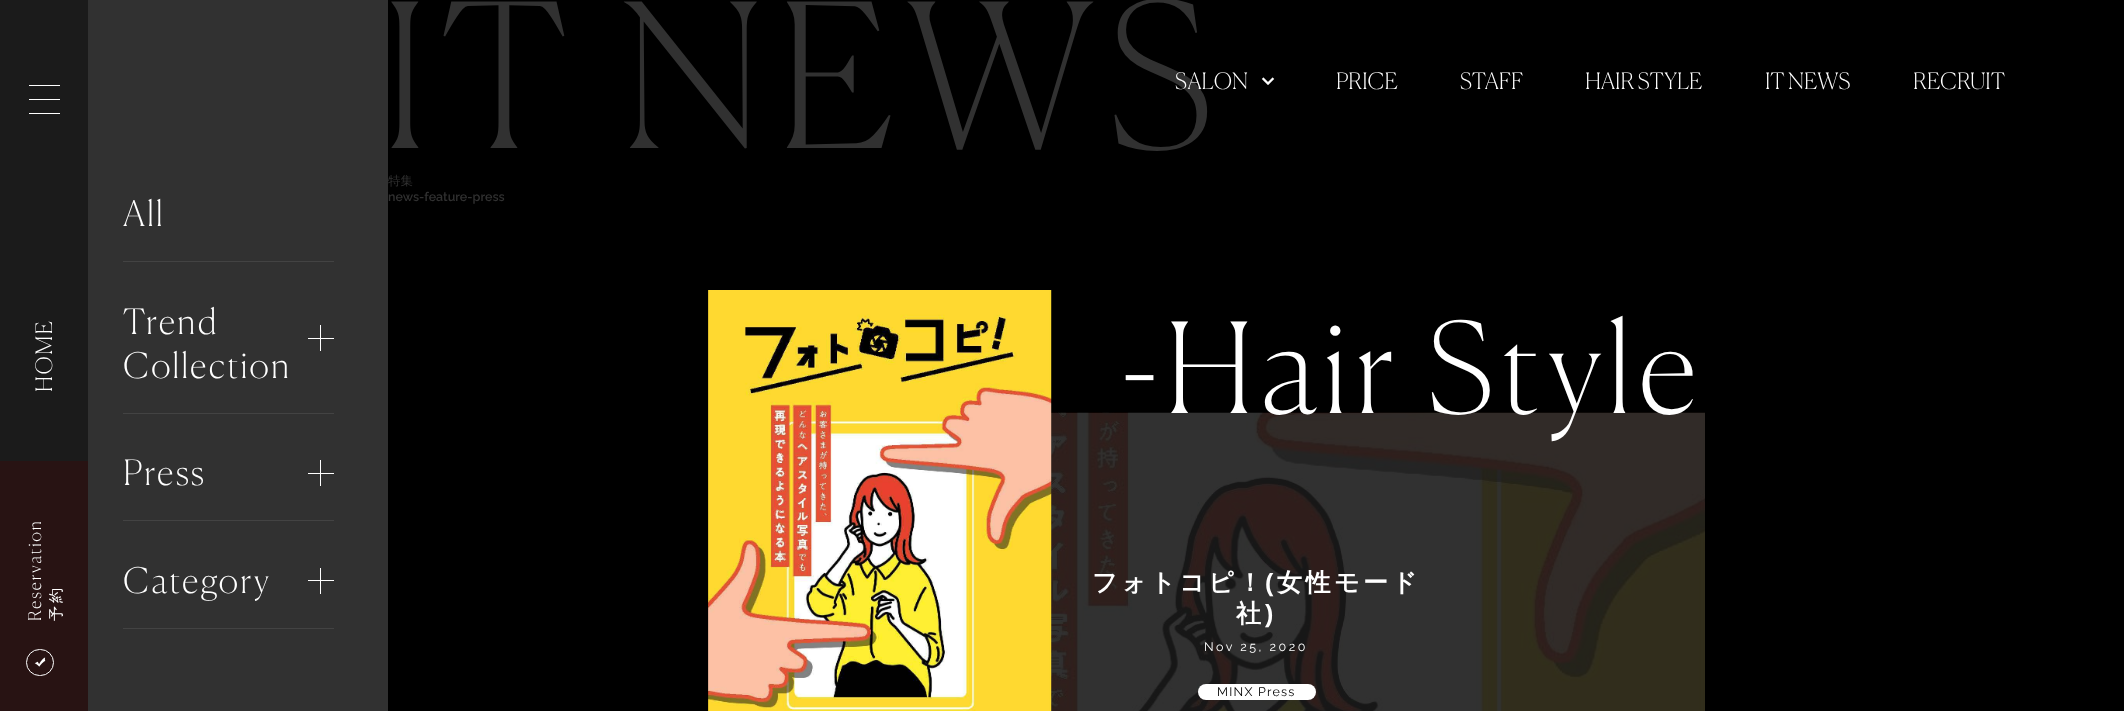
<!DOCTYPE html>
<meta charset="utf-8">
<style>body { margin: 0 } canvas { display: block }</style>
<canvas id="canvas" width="2124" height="711"></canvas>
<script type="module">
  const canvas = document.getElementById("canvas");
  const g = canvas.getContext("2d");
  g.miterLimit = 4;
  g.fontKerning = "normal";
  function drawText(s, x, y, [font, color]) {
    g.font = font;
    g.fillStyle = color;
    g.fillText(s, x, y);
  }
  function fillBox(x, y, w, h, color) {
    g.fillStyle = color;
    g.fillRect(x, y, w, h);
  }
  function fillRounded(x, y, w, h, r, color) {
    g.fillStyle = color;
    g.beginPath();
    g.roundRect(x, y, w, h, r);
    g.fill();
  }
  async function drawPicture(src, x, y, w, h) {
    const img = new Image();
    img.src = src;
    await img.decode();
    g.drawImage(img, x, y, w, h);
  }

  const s1 = ["100 35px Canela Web", "#FFFFFF"];
  const s2 = ["100 200px Canela Web", "#313131"];
  const s3 = ["100 22.5px Canela Web", "#FFFFFF"];
  const s4 = ["500 12.5px WenQuanYi Zen Hei", "#313131"];
  const s5 = ["600 12.5px Raleway", "#313131"];
  const s6 = ["100 125px Canela Web", "#FFFFFF"];
  const s7 = ["bold 25px WenQuanYi Zen Hei", "#FFFFFF"];
  const s8 = ["bold 25px Liberation Sans", "#FFFFFF"];
  const s9 = ["12.5px Raleway", "#FFFFFF"];
  const s10 = ["12.5px Raleway", "#000000"];

  fillBox(0, 0, 2124, 711, "#000000");
  fillBox(0, 0, 88, 461, "#1B1B1B");
  fillBox(29, 85, 31, 1, "#FFFFFF");
  fillBox(29, 99, 31, 1, "#FFFFFF");
  fillBox(29, 113, 31, 1, "#FFFFFF");
  g.letterSpacing = "1.5px";
  g.font = "100 22.5px Canela Web";
  g.save();
  g.translate(52, 392);
  g.rotate(-90 * Math.PI / 180);
  g.fillText("HOME", 0, 0);
  g.restore();
  fillBox(0, 461, 88, 250, "#281313");
  g.letterSpacing = "1.75px";
  g.font = "100 17.5px Canela Web";
  g.fillStyle = "#FFFFFF";
  g.save();
  g.translate(41, 621);
  g.rotate(-90 * Math.PI / 180);
  g.fillText("Reservation", 0, 0);
  g.restore();
  g.letterSpacing = "3px";
  g.font = "500 15px WenQuanYi Zen Hei";
  g.save();
  g.translate(61, 621);
  g.rotate(-90 * Math.PI / 180);
  g.fillText("予約", 0, 0);
  g.restore();
  g.beginPath();
  g.roundRect(26.5, 649.5, 27, 26, 13);
  g.strokeStyle = "#FFFFFF";
  g.stroke();
  await drawPicture("pic1.png", 34, 657, 12, 10);
  fillBox(88, 0, 300, 711, "#313131");
  fillBox(123, 261, 211, 1, "#434343");
  g.letterSpacing = "2.1px";
  drawText("All", 123, 226, s1);
  fillBox(123, 413, 211, 1, "#434343");
  drawText("Trend", 123, 334, s1);
  drawText("Collection", 123, 378, s1);
  fillBox(308, 338, 26, 1, "#FFFFFF");
  fillBox(320, 325, 1, 26, "#FFFFFF");
  fillBox(123, 520, 211, 1, "#434343");
  drawText("Press", 123, 485, s1);
  fillBox(308, 473, 26, 1, "#FFFFFF");
  fillBox(320, 460, 1, 26, "#FFFFFF");
  fillBox(123, 628, 211, 1, "#434343");
  drawText("Category", 123, 593, s1);
  fillBox(308, 580, 26, 1, "#FFFFFF");
  fillBox(320, 568, 1, 26, "#FFFFFF");
  g.letterSpacing = "12px";
  drawText("IT NEWS", 381, 148, s2);
  g.letterSpacing = "0px";
  drawText("SALON", 1175, 89, s3);
  await drawPicture("pic2.png", 1261, 77, 14, 8);
  drawText("PRICE", 1336, 89, s3);
  drawText("STAFF", 1460, 89, s3);
  drawText("HAIR STYLE", 1585, 89, s3);
  drawText("IT NEWS", 1765, 89, s3);
  drawText("RECRUIT", 1913, 89, s3);
  drawText("特集", 388, 185, s4);
  drawText("news-feature-press", 388, 201, s5);
  fillBox(1051, 413, 654, 298, "#1A1A1A");
  await drawPicture("pic4.png", 1051, 412, 654, 299);
  g.letterSpacing = "7.5px";
  drawText("-Hair Style", 1122, 413, s6);
  await drawPicture("pic3.png", 708, 290, 344, 421);
  g.letterSpacing = "3.5px";
  drawText("フォトコピ！", 1092, 591, s7);
  drawText("(", 1265, 591, s8);
  drawText("女性モード", 1277, 591, s7);
  drawText("社", 1236, 622, s7);
  drawText(")", 1265, 622, s8);
  g.letterSpacing = "2.5px";
  drawText("Nov 25, 2020", 1204, 651, s9);
  fillRounded(1198, 684, 118, 16, 8, "#FFFFFF");
  g.letterSpacing = "1.25px";
  drawText("MINX Press", 1217, 696, s10);
</script>
